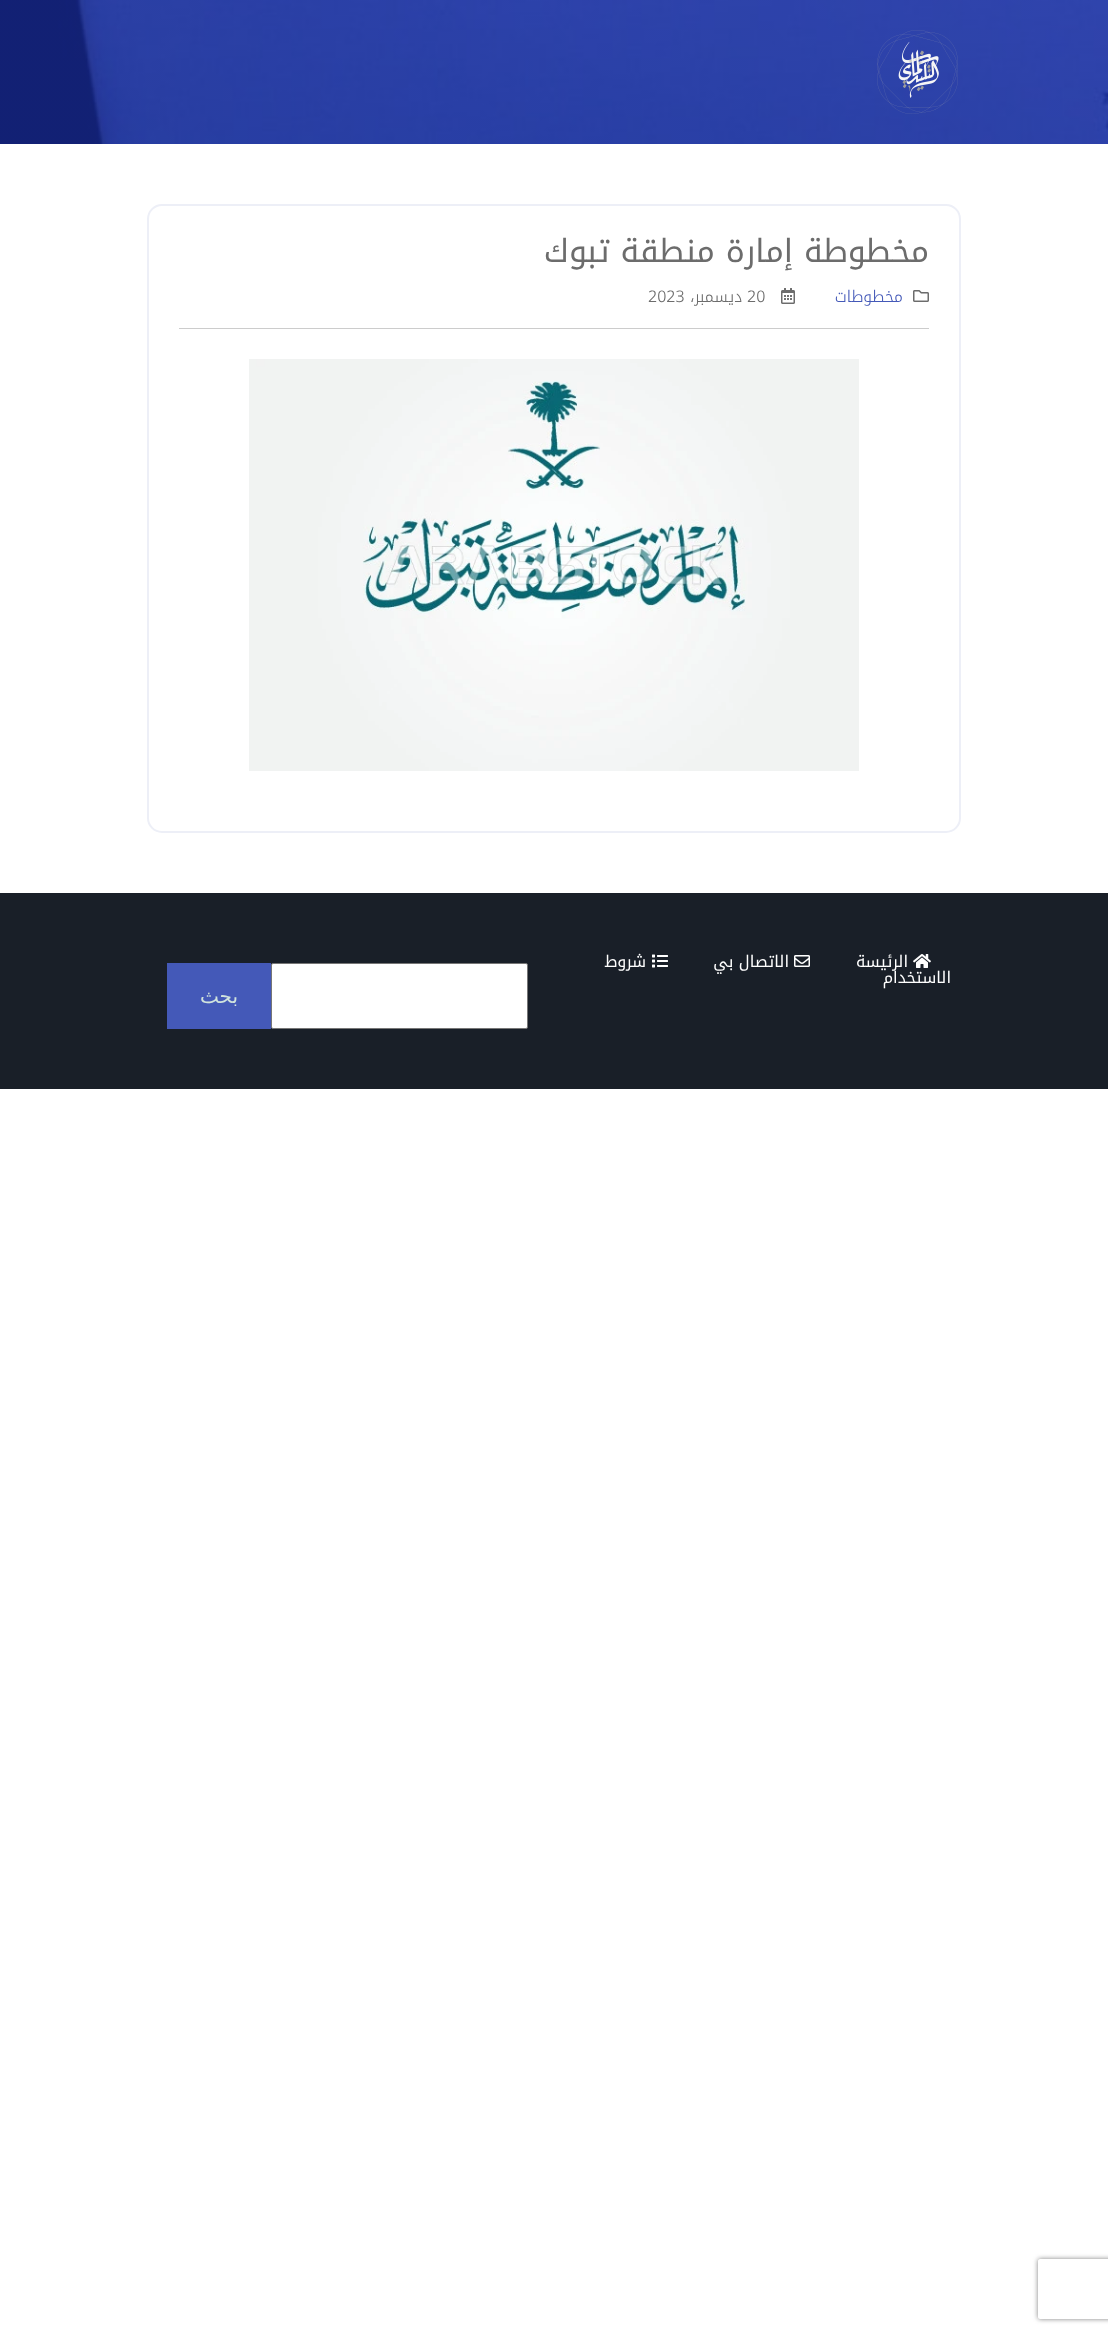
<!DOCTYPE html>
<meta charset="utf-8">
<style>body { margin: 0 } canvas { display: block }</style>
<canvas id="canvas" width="1108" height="2333"></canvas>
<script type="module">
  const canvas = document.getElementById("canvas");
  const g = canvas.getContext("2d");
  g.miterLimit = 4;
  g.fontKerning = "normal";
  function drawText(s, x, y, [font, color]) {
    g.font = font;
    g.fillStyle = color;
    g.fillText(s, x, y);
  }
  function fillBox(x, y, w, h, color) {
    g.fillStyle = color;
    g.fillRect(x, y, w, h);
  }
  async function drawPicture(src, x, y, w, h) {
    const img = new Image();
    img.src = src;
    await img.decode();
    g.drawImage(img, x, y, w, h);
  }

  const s1 = ["32px Noto Kufi Arabic", "#6C6C6C"];
  const s2 = ["300 16px Noto Kufi Arabic", "#4459B8"];
  const s3 = ["300 16px Noto Kufi Arabic", "#6C6C6C"];
  const s4 = ["16px Noto Kufi Arabic", "#FFFFFF"];
  const s5 = ["20px DejaVu Sans", "#D1E4DD"];

  fillBox(0, 0, 1108, 2333, "#FFFFFF");
  await drawPicture("pic1.png", 0, 0, 1108, 144);
  await drawPicture("pic2.png", 877, 30, 81, 84);
  g.beginPath();
  g.roundRect(148, 205, 812, 627, 14);
  g.strokeStyle = "#EDEFF7";
  g.lineWidth = 2;
  g.stroke();
  fillBox(179, 328, 750, 1, "#CCCCCC");
  g.direction = "rtl";
  drawText("مخطوطة إمارة منطقة تبوك", 929, 262, s1);
  await drawPicture("pic3.png", 913, 290, 16, 12);
  drawText("مخطوطات", 903, 302, s2);
  await drawPicture("pic4.png", 781, 288, 14, 16);
  g.direction = "ltr";
  drawText("20", 747, 302, s3);
  g.direction = "rtl";
  drawText("ديسمبر،", 742, 302, s3);
  g.direction = "ltr";
  drawText("2023", 648, 302, s3);
  await drawPicture("pic5.png", 249, 359, 610, 412);
  fillBox(0, 893, 1108, 196, "#191F28");
  await drawPicture("pic6.png", 652, 954, 16, 14);
  g.direction = "rtl";
  drawText("شروط", 646, 967, s4);
  drawText("الاستخدام", 951, 983, s4);
  await drawPicture("pic7.png", 913, 954, 18, 14);
  drawText("الرئيسة", 908, 967, s4);
  await drawPicture("pic8.png", 794, 955, 16, 12);
  drawText("الاتصال بي", 789, 967, s4);
  g.beginPath();
  g.roundRect(271.5, 963.5, 256, 65, 1.5);
  g.fill();
  g.strokeStyle = "#767676";
  g.lineWidth = 1;
  g.stroke();
  fillBox(167, 963, 104, 66, "#4459B8");
  drawText("بحث", 238, 1003, s5);
  g.save();
  g.beginPath();
  g.moveTo(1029, 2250);
  g.lineTo(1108, 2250);
  g.lineTo(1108, 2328);
  g.lineTo(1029, 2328);
  g.closePath();
  g.moveTo(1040, 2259);
  g.lineTo(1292, 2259);
  g.bezierCurveTo(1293, 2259, 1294, 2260, 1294, 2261);
  g.lineTo(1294, 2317);
  g.bezierCurveTo(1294, 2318, 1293, 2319, 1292, 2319);
  g.lineTo(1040, 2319);
  g.bezierCurveTo(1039, 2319, 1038, 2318, 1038, 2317);
  g.lineTo(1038, 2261);
  g.bezierCurveTo(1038, 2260, 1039, 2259, 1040, 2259);
  g.closePath();
  g.clip("evenodd");
  g.fillStyle = "#808080";
  g.filter = "blur(2.5px)";
  g.beginPath();
  g.roundRect(1038, 2259, 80, 60, 2);
  g.fill();
  g.filter = "none";
  g.restore();
</script>
